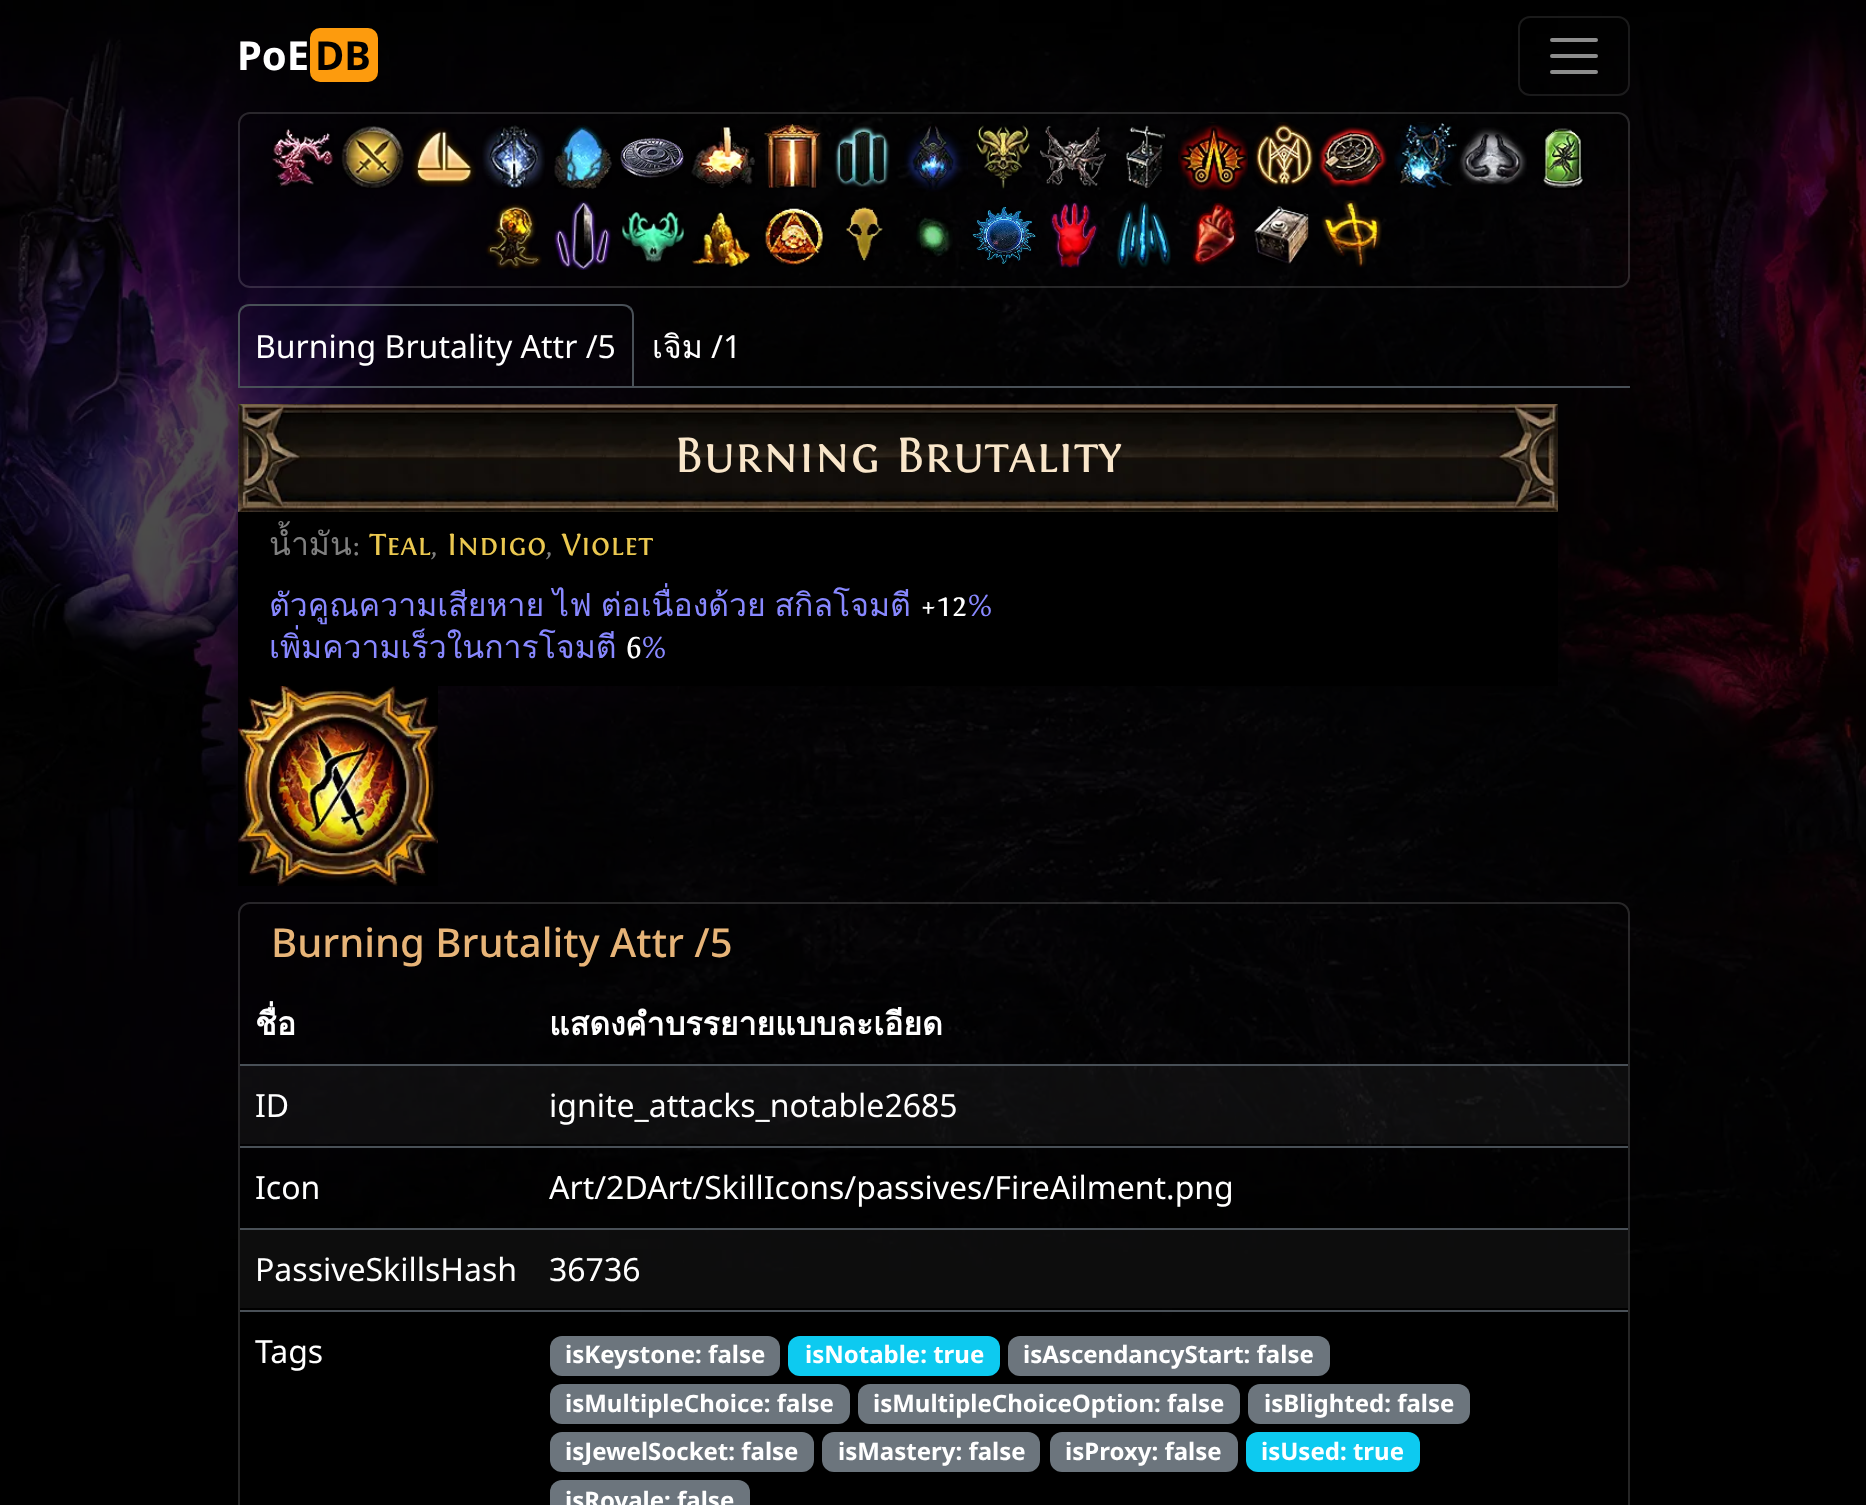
<!DOCTYPE html>
<meta charset="utf-8">
<style>body { margin: 0 } canvas { display: block }</style>
<canvas id="canvas" width="1866" height="1505"></canvas>
<script type="module">
  const canvas = document.getElementById("canvas");
  const g = canvas.getContext("2d");
  g.miterLimit = 4;
  g.fontKerning = "normal";
  function drawText(s, x, y, [font, color]) {
    g.font = font;
    g.fillStyle = color;
    g.fillText(s, x, y);
  }
  function fillBox(x, y, w, h, color) {
    g.fillStyle = color;
    g.fillRect(x, y, w, h);
  }
  function fillRounded(x, y, w, h, r, color) {
    g.fillStyle = color;
    g.beginPath();
    g.roundRect(x, y, w, h, r);
    g.fill();
  }
  async function drawPicture(src, x, y, w, h) {
    const img = new Image();
    img.src = src;
    await img.decode();
    g.drawImage(img, x, y, w, h);
  }

  const s1 = ["bold 40px Noto Sans", "#FFFFFF"];
  const s2 = ["bold 40px Noto Sans", "#000000"];
  const s3 = ["32px Noto Sans", "#FFFFFF"];
  const s4 = ["32px Loma", "#FFFFFF"];
  const s5 = ["52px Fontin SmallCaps", "#F9E6CA"];
  const s6 = ["32px Loma", "#7F7F7F"];
  const s7 = ["32px Fontin SmallCaps", "#7F7F7F"];
  const s8 = ["32px Fontin SmallCaps", "#EBC850"];
  const s9 = ["32px Loma", "#8888FF"];
  const s10 = ["32px Fontin SmallCaps", "#FFFFFF"];
  const s11 = ["32px Fontin SmallCaps", "#8888FF"];
  const s12 = ["500 40px Noto Sans", "#E7B478"];
  const s13 = ["bold 32px Loma", "#FFFFFF"];
  const s14 = ["bold 24px Noto Sans", "#FFFFFF"];

  fillBox(0, 0, 1866, 1505, "#FFFFFF");
  await drawPicture("pic1.png", 0, 0, 1866, 1505);
  drawText("PoE", 237, 70, s1);
  fillRounded(310, 28, 68, 54, 10, "#FD9B0D");
  drawText("DB", 315, 70, s2);
  g.beginPath();
  g.roundRect(1519, 17, 110, 78, 11);
  g.strokeStyle = "rgba(255, 255, 255, 0.1)";
  g.lineWidth = 2;
  g.stroke();
  g.beginPath();
  g.moveTo(1552, 40);
  g.lineTo(1596, 40);
  g.moveTo(1552, 56);
  g.lineTo(1596, 56);
  g.moveTo(1552, 72);
  g.lineTo(1596, 72);
  g.strokeStyle = "#8D8D8D";
  g.lineWidth = 4;
  g.lineCap = "round";
  g.stroke();
  g.beginPath();
  g.roundRect(239, 113, 1390, 174, 11);
  g.strokeStyle = "rgba(255, 255, 255, 0.15)";
  g.lineWidth = 2;
  g.stroke();
  await drawPicture("pic2.png", 272, 128, 62, 59);
  await drawPicture("pic3.png", 341, 126, 63, 63);
  await drawPicture("pic4.png", 411, 127, 65, 60);
  await drawPicture("pic5.png", 482, 125, 63, 64);
  await drawPicture("pic6.png", 554, 125, 58, 64);
  await drawPicture("pic7.png", 620, 137, 65, 41);
  await drawPicture("pic8.png", 691, 127, 64, 61);
  await drawPicture("pic9.png", 764, 123, 59, 66);
  await drawPicture("pic10.png", 834, 126, 56, 62);
  await drawPicture("pic11.png", 904, 124, 64, 68);
  await drawPicture("pic12.png", 976, 125, 54, 64);
  await drawPicture("pic13.png", 1040, 126, 66, 61);
  await drawPicture("pic14.png", 1126, 125, 40, 63);
  await drawPicture("pic15.png", 1178, 122, 70, 70);
  await drawPicture("pic16.png", 1253, 122, 63, 66);
  await drawPicture("pic17.png", 1318, 126, 70, 63);
  await drawPicture("pic18.png", 1394, 122, 63, 67);
  await drawPicture("pic19.png", 1458, 127, 69, 58);
  await drawPicture("pic20.png", 1543, 128, 41, 62);
  await drawPicture("pic21.png", 485, 203, 57, 67);
  await drawPicture("pic22.png", 554, 200, 58, 70);
  await drawPicture("pic23.png", 621, 211, 64, 52);
  await drawPicture("pic24.png", 692, 212, 59, 55);
  await drawPicture("pic25.png", 763, 207, 61, 59);
  await drawPicture("pic26.png", 846, 207, 37, 54);
  await drawPicture("pic27.png", 916, 217, 37, 40);
  await drawPicture("pic28.png", 972, 206, 64, 58);
  await drawPicture("pic29.png", 1050, 200, 49, 70);
  await drawPicture("pic30.png", 1116, 201, 55, 68);
  await drawPicture("pic31.png", 1191, 201, 48, 66);
  await drawPicture("pic32.png", 1254, 206, 55, 58);
  await drawPicture("pic33.png", 1321, 200, 61, 68);
  fillBox(238, 386, 1392, 2, "#495057");
  g.beginPath();
  g.moveTo(250, 304);
  g.bezierCurveTo(246, 304, 244, 305, 241, 307);
  g.lineTo(243, 309);
  g.bezierCurveTo(244, 307, 247, 306, 250, 306);
  g.lineTo(622, 306);
  g.bezierCurveTo(625, 306, 628, 307, 629, 309);
  g.lineTo(631, 307);
  g.bezierCurveTo(628, 305, 626, 304, 622, 304);
  g.closePath();
  g.fill();
  g.beginPath();
  g.moveTo(634, 388);
  g.lineTo(634, 316);
  g.bezierCurveTo(634, 312, 633, 310, 631, 307);
  g.lineTo(629, 309);
  g.bezierCurveTo(631, 310, 632, 313, 632, 316);
  g.lineTo(632, 386);
  g.closePath();
  g.fill();
  g.beginPath();
  g.moveTo(238, 388);
  g.lineTo(240, 386);
  g.lineTo(240, 316);
  g.bezierCurveTo(240, 313, 241, 310, 243, 309);
  g.lineTo(241, 307);
  g.bezierCurveTo(239, 310, 238, 312, 238, 316);
  g.closePath();
  g.fill();
  drawText("Burning Brutality Attr /5", 255, 358, s3);
  drawText("เจิม", 652, 358, s4);
  drawText("/1", 711, 358, s3);
  fillBox(238, 512, 1320, 174, "#000000");
  await drawPicture("pic34.png", 238, 404, 1320, 108);
  drawText("Burning Brutality", 674, 472, s5);
  drawText("น้ำมัน", 269, 555, s6);
  drawText(":", 352, 555, s7);
  drawText("Teal", 369, 555, s8);
  drawText(",", 431, 555, s7);
  drawText("Indigo", 447, 555, s8);
  drawText(",", 546, 555, s7);
  drawText("Violet", 561, 555, s8);
  g.wordSpacing = "-2px";
  drawText("ตัวคูณความเสียหาย ไฟ ต่อเนื่องด้วย สกิลโจมตี", 269, 616, s9);
  g.wordSpacing = "0px";
  drawText("+12", 921, 616, s10);
  drawText("%", 967, 616, s11);
  drawText("เพิ่มความเร็วในการโจมตี", 269, 658, s9);
  drawText("6", 626, 658, s10);
  drawText("%", 641, 658, s11);
  fillBox(238, 686, 200, 200, "#000000");
  await drawPicture("pic36.png", 270, 719, 134, 135);
  await drawPicture("pic35.png", 238, 686, 200, 200);
  g.beginPath();
  g.roundRect(239, 903, 1390, 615, 11);
  g.stroke();
  drawText("Burning Brutality Attr /5", 271, 957, s12);
  drawText("ชื่อ", 255, 1035, s13);
  fillBox(240, 1064, 1388, 2, "#495057");
  drawText("แสดงคำบรรยายแบบละเอียด", 549, 1035, s13);
  fillBox(240, 1066, 294, 78, "rgba(255, 255, 255, 0.05)");
  drawText("ID", 255, 1117, s3);
  fillBox(534, 1066, 1094, 78, "rgba(255, 255, 255, 0.05)");
  fillBox(240, 1146, 1388, 2, "#495057");
  drawText("ignite_attacks_notable2685", 549, 1117, s3);
  drawText("Icon", 255, 1199, s3);
  fillBox(240, 1228, 1388, 2, "#495057");
  drawText("Art/2DArt/SkillIcons/passives/FireAilment.png", 549, 1199, s3);
  fillBox(240, 1230, 294, 78, "#0D0D0D");
  drawText("PassiveSkillsHash", 255, 1281, s3);
  fillBox(534, 1230, 1094, 78, "rgba(255, 255, 255, 0.05)");
  fillBox(240, 1310, 1388, 2, "#495057");
  drawText("36736", 549, 1281, s3);
  drawText("Tags", 255, 1363, s3);
  fillRounded(550, 1336, 230, 40, 12, "#6C757D");
  drawText("isKeystone: false", 565, 1363, s14);
  fillRounded(788, 1336, 212, 40, 12, "#0DCAF0");
  drawText("isNotable: true", 805, 1363, s14);
  fillRounded(1008, 1336, 322, 40, 12, "#6C757D");
  drawText("isAscendancyStart: false", 1023, 1363, s14);
  fillRounded(550, 1384, 300, 40, 12, "#6C757D");
  drawText("isMultipleChoice: false", 565, 1412, s14);
  fillRounded(858, 1384, 382, 40, 12, "#6C757D");
  drawText("isMultipleChoiceOption: false", 873, 1412, s14);
  fillRounded(1248, 1384, 222, 40, 12, "#6C757D");
  drawText("isBlighted: false", 1264, 1412, s14);
  fillRounded(550, 1432, 264, 40, 12, "#6C757D");
  drawText("isJewelSocket: false", 565, 1460, s14);
  fillRounded(822, 1432, 218, 40, 12, "#6C757D");
  drawText("isMastery: false", 838, 1460, s14);
  fillRounded(1050, 1432, 188, 40, 12, "#6C757D");
  drawText("isProxy: false", 1065, 1460, s14);
  fillRounded(1246, 1432, 174, 40, 12, "#0DCAF0");
  drawText("isUsed: true", 1261, 1460, s14);
  fillRounded(550, 1480, 200, 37, 12, "#6C757D");
  drawText("isRoyale: false", 565, 1509, s14);
</script>
